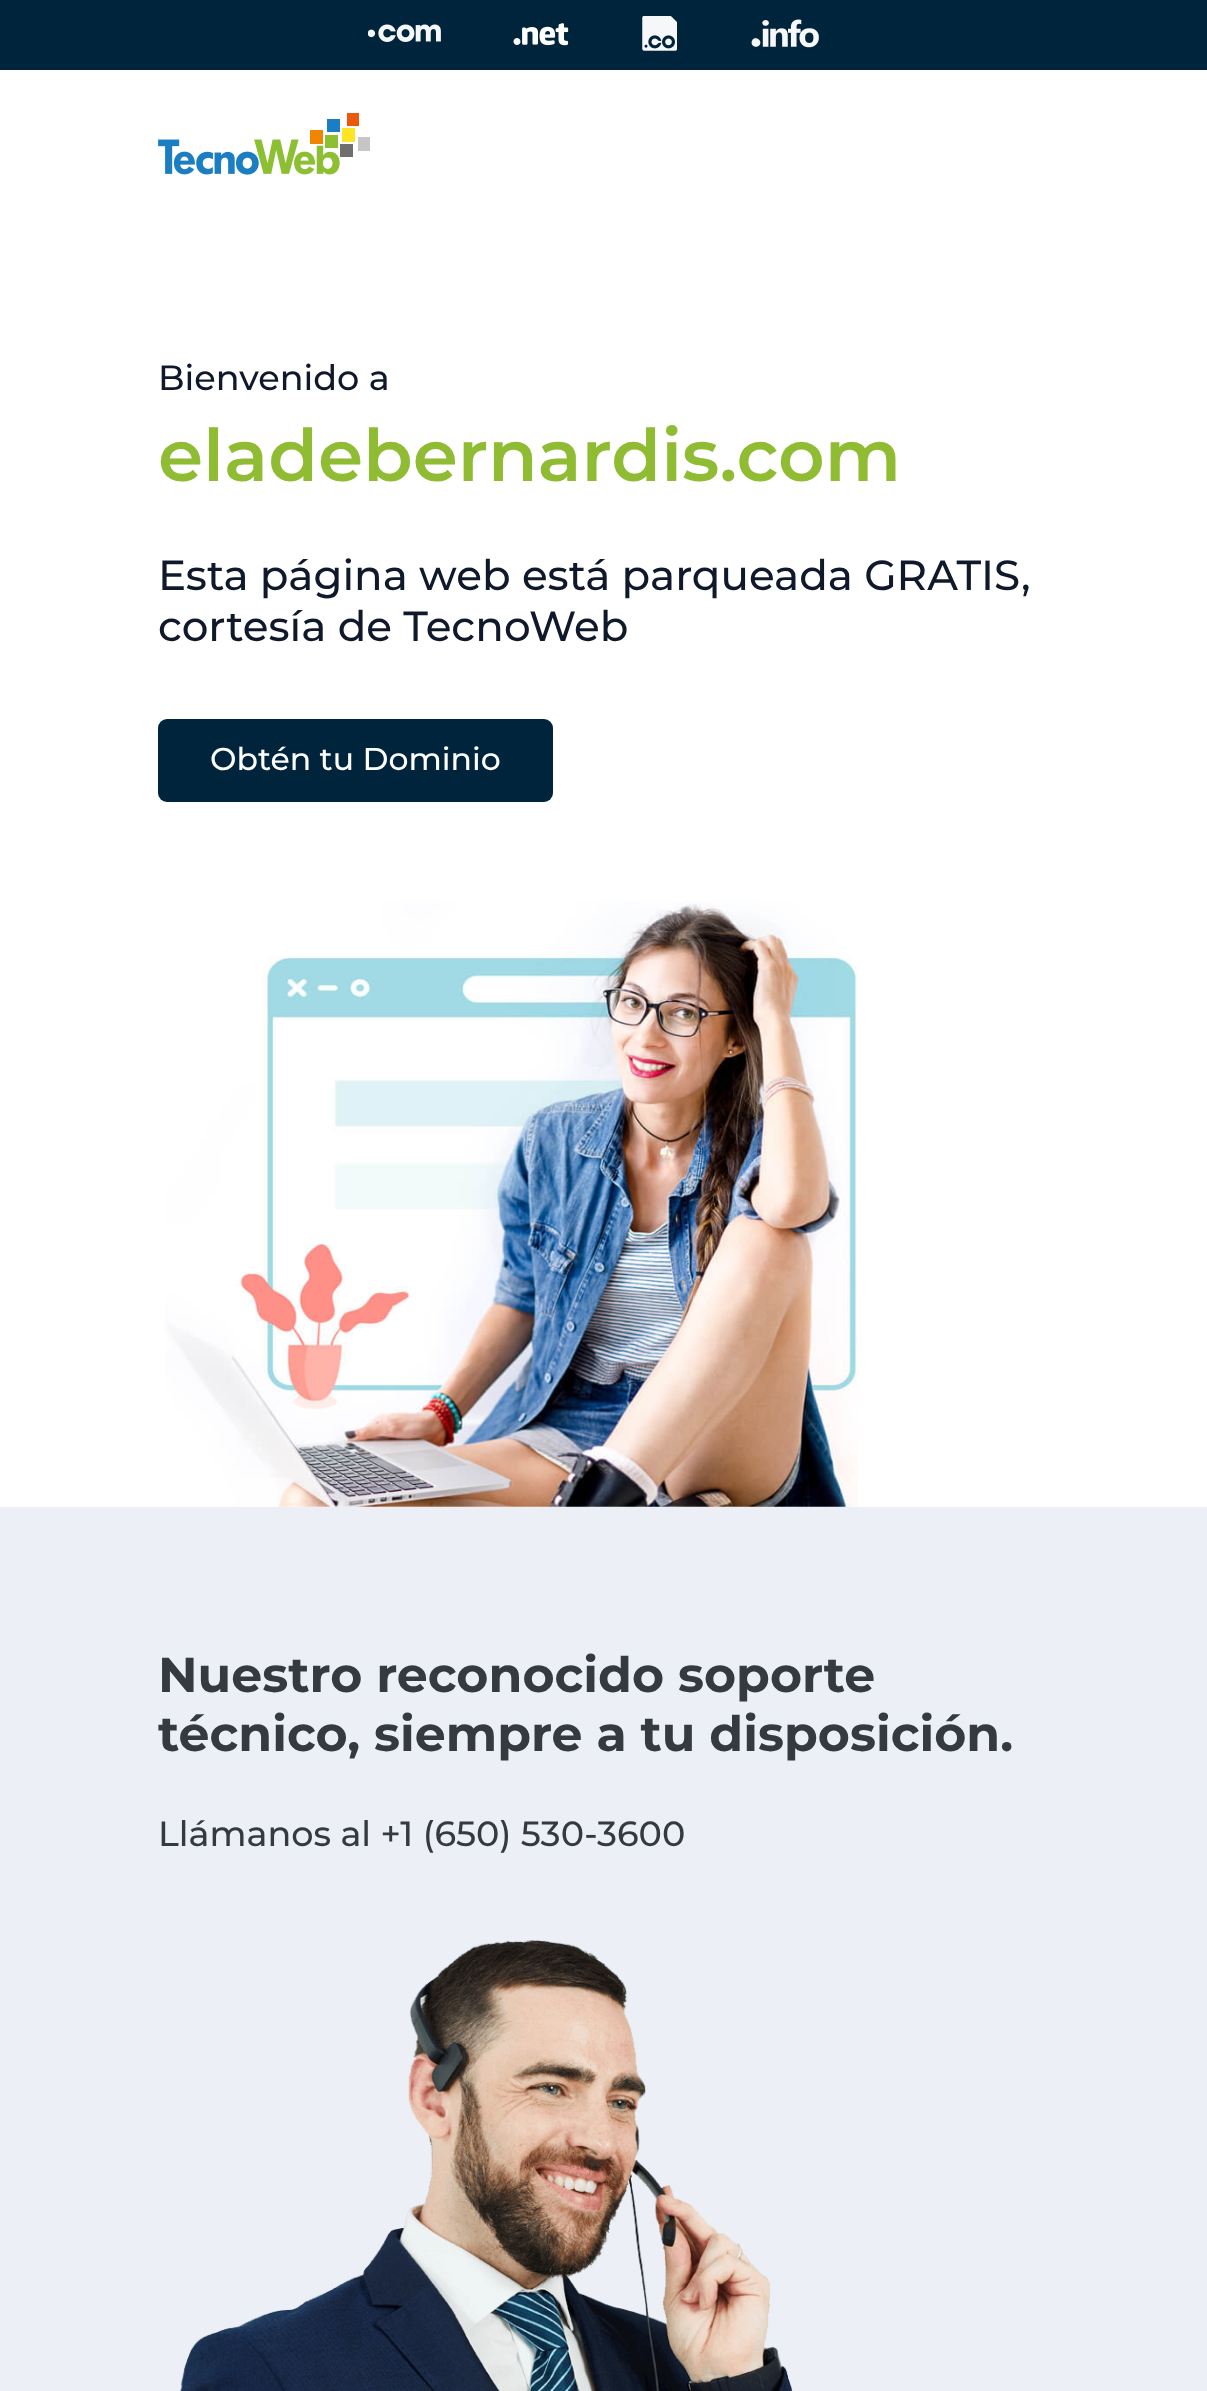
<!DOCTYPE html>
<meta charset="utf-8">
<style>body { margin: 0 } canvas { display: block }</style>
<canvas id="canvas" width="1207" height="2391"></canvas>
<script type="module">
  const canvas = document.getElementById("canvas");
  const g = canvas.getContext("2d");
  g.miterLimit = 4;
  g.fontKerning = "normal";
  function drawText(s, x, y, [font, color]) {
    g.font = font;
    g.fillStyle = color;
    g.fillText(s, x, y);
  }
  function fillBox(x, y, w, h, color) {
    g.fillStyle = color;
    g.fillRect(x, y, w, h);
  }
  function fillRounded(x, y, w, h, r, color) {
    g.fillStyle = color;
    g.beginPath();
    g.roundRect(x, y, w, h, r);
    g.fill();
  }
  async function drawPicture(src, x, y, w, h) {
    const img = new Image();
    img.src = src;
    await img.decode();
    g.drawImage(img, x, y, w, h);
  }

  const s1 = ["500 35px Montserrat", "#10192B"];
  const s2 = ["600 72.5px Montserrat", "#90BC33"];
  const s3 = ["500 42px Montserrat", "#10192B"];
  const s4 = ["500 31.5px Montserrat", "#FFFFFF"];
  const s5 = ["bold 49px Montserrat", "#343A40"];
  const s6 = ["500 35px Montserrat", "#343A40"];

  fillBox(0, 0, 1207, 2391, "#FFFFFF");
  fillBox(0, 0, 1207, 70, "#00243C");
  await drawPicture("pic1.png", 368, 24, 73, 18);
  await drawPicture("pic2.png", 513, 23, 56, 23);
  await drawPicture("pic3.png", 642, 16, 35, 35);
  await drawPicture("pic4.png", 751, 19, 68, 29);
  await drawPicture("pic5.png", 158, 113, 212, 62);
  drawText("Bienvenido a", 158, 390, s1);
  drawText("eladebernardis.com", 158, 481, s2);
  drawText("Esta página web está parqueada GRATIS,", 158, 590, s3);
  drawText("cortesía de TecnoWeb", 158, 641, s3);
  fillRounded(158, 719, 395, 83, 9, "#00243C");
  drawText("Obtén tu Dominio", 210, 770, s4);
  await drawPicture("pic6.png", 165, 901, 693, 606);
  fillBox(0, 1507, 1207, 884, "#ECF0F6");
  drawText("Nuestro reconocido soporte", 158, 1692, s5);
  drawText("técnico, siempre a tu disposición.", 158, 1751, s5);
  drawText("Llámanos al +1 (650) 530-3600", 158, 1846, s6);
  await drawPicture("pic7.png", 180, 1940, 613, 451);
</script>
